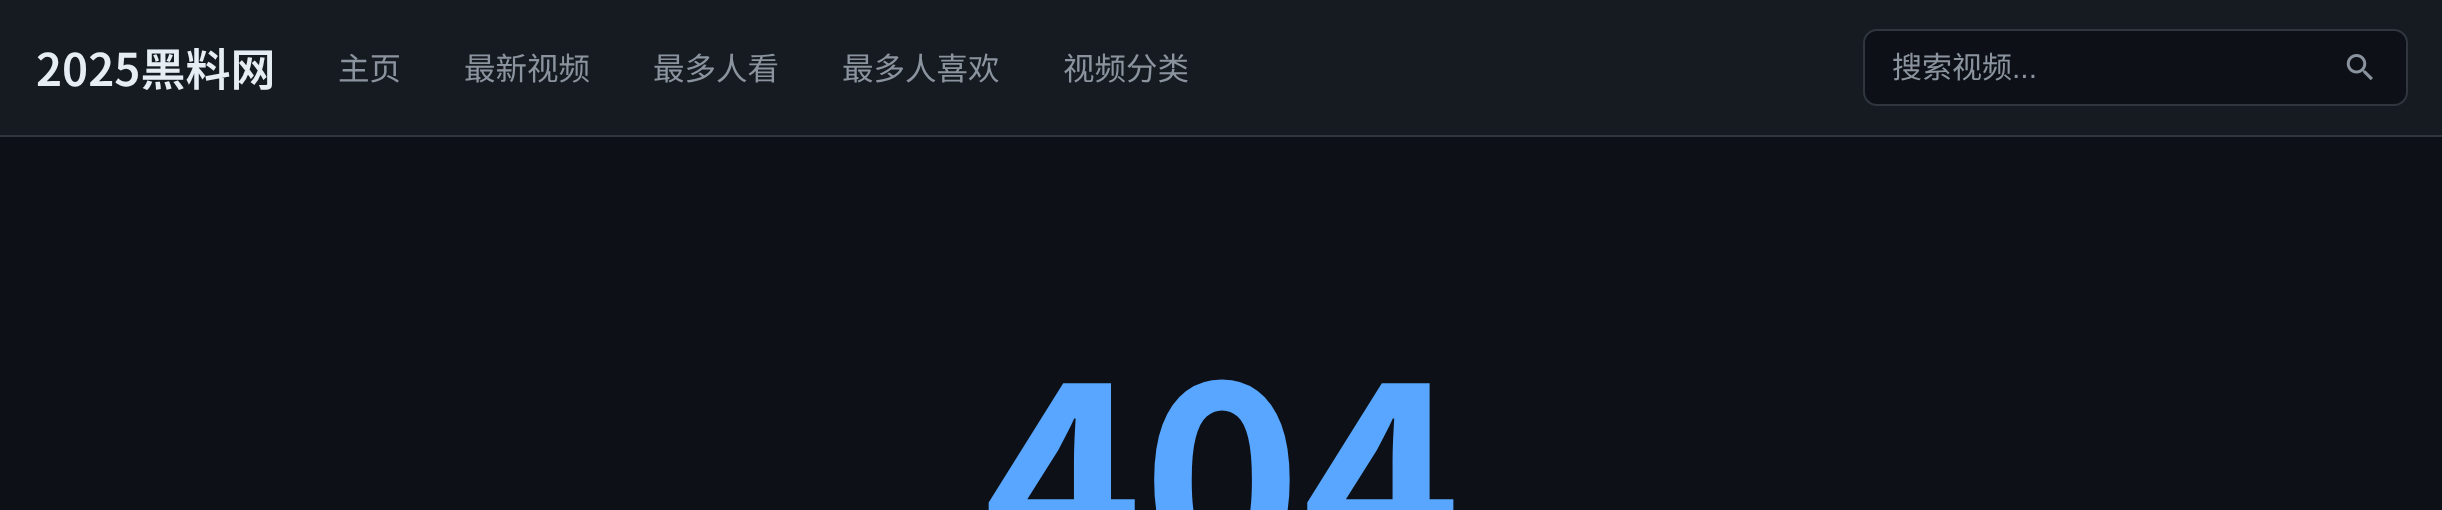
<!DOCTYPE html>
<meta charset="utf-8">
<style>body { margin: 0 } canvas { display: block }</style>
<canvas id="canvas" width="2442" height="510"></canvas>
<script type="module">
  const canvas = document.getElementById("canvas");
  const g = canvas.getContext("2d");
  g.miterLimit = 4;
  g.fontKerning = "normal";
  function drawText(s, x, y, [font, color]) {
    g.font = font;
    g.fillStyle = color;
    g.fillText(s, x, y);
  }
  function fillBox(x, y, w, h, color) {
    g.fillStyle = color;
    g.fillRect(x, y, w, h);
  }
  async function drawPicture(src, x, y, w, h) {
    const img = new Image();
    img.src = src;
    await img.decode();
    g.drawImage(img, x, y, w, h);
  }

  const s1 = ["600 45px Noto Sans SC", "#E6EDF3"];
  const s2 = ["31.5px Noto Sans SC", "#8B949E"];
  const s3 = ["30px Noto Sans CJK SC", "#8B949E"];
  const s4 = ["30px Liberation Sans", "#8B949E"];
  const s5 = ["bold 270px Noto Sans SC", "#58A6FF"];

  fillBox(0, 0, 2442, 510, "#0D1117");
  fillBox(0, 0, 2442, 135, "#161B22");
  fillBox(0, 135, 2442, 2, "#30363D");
  drawText("2025黑料网", 36, 86, s1);
  drawText("主页", 338, 80, s2);
  drawText("最新视频", 464, 80, s2);
  drawText("最多人看", 653, 80, s2);
  drawText("最多人喜欢", 842, 80, s2);
  drawText("视频分类", 1063, 80, s2);
  g.fillStyle = "#0D1117";
  g.beginPath();
  g.roundRect(1864, 30, 543, 75, 13);
  g.fill();
  g.strokeStyle = "#30363D";
  g.lineWidth = 2;
  g.stroke();
  drawText("搜索视频", 1892, 78, s3);
  drawText("...", 2012, 78, s4);
  await drawPicture("pic1.png", 2346, 54, 27, 27);
  drawText("404", 983, 578, s5);
</script>
